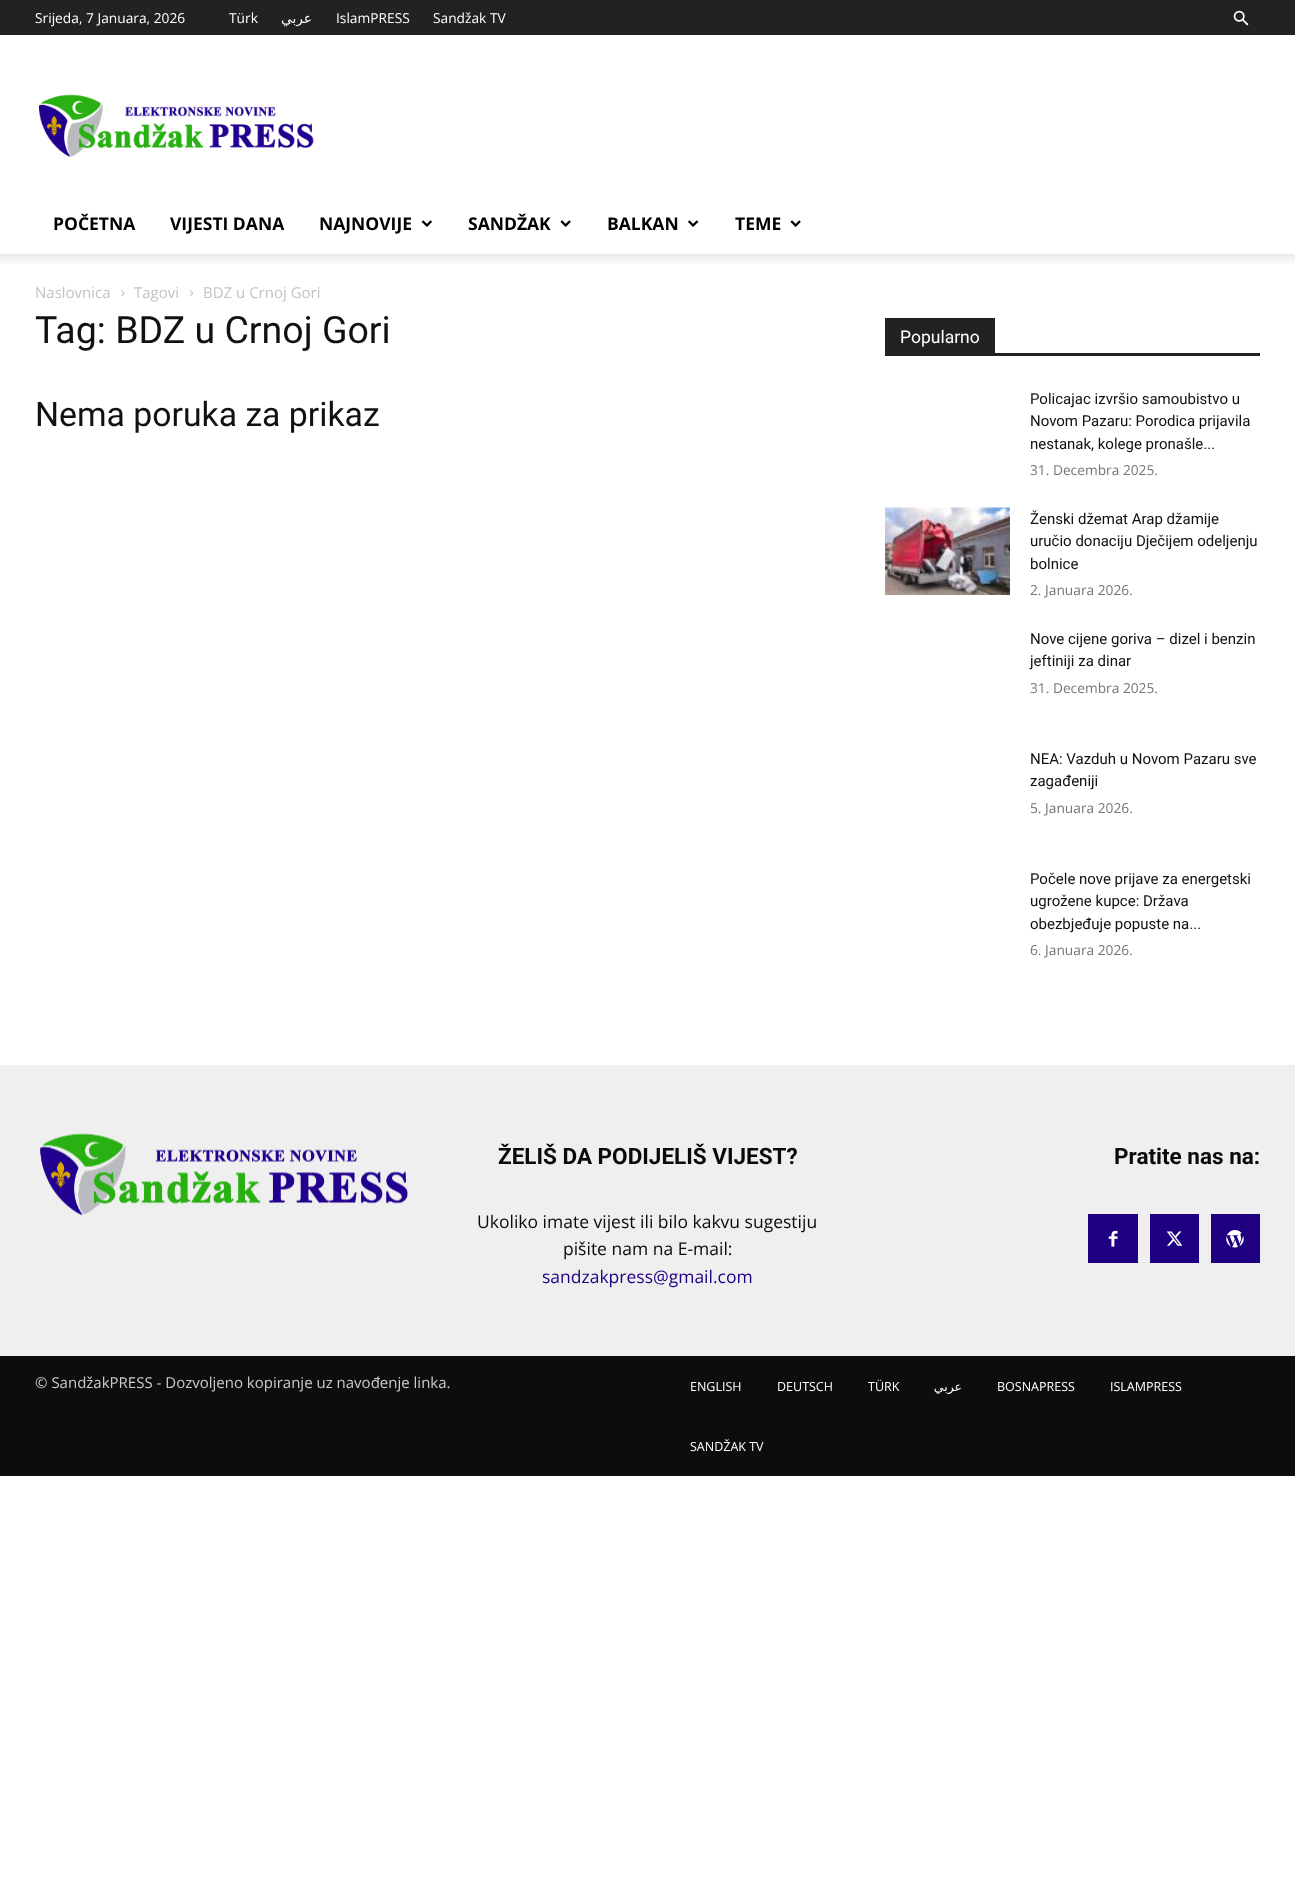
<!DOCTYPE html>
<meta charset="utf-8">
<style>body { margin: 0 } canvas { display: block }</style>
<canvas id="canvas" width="1295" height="1899"></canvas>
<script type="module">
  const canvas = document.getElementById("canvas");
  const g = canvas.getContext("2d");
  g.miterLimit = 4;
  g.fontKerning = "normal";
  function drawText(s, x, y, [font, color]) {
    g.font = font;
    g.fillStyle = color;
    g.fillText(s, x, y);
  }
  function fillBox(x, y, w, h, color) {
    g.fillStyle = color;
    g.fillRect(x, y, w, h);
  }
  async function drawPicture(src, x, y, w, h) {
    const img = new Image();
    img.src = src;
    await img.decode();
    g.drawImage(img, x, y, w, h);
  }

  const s1 = ["13.75px Open Sans", "#FFFFFF"];
  const s2 = ["13.75px DejaVu Sans", "#FFFFFF"];
  const s3 = ["bold 17.5px Open Sans", "#000000"];
  const s4 = ["15px Open Sans", "#C3C3C3"];
  const s5 = ["37.5px Roboto", "#111111"];
  const s6 = ["33.75px Roboto", "#111111"];
  const s7 = ["17.5px Roboto", "#FFFFFF"];
  const s8 = ["15px Roboto", "#111111"];
  const s9 = ["13.75px Open Sans", "#767676"];
  const s10 = ["bold 22.5px Roboto", "#0A0A0A"];
  const s11 = ["17.5px Open Sans", "#0A0A0A"];
  const s12 = ["17.5px Open Sans", "#1F0082"];
  const s13 = ["15px Open Sans", "#CCCCCC"];
  const s14 = ["12.5px Open Sans", "#FFFFFF"];
  const s15 = ["12.5px DejaVu Sans", "#FFFFFF"];

  fillBox(0, 0, 1295, 1899, "#FFFFFF");
  fillBox(0, 0, 1295, 35, "#222222");
  drawText("Srijeda, 7 Januara, 2026", 35, 23, s1);
  drawText("Türk", 229, 23, s1);
  g.direction = "rtl";
  drawText("عربي", 312, 23, s2);
  g.direction = "ltr";
  drawText("IslamPRESS", 336, 23, s1);
  drawText("Sandžak TV", 433, 23, s1);
  await drawPicture("pic1.png", 1233, 10, 16, 16);
  await drawPicture("pic2.png", 38, 94, 276, 63);
  drawText("POČETNA", 53, 230, s3);
  drawText("VIJESTI DANA", 170, 230, s3);
  drawText("NAJNOVIJE", 319, 230, s3);
  await drawPicture("pic3.png", 421, 220, 11, 7);
  drawText("SANDŽAK", 468, 230, s3);
  await drawPicture("pic4.png", 560, 220, 11, 7);
  drawText("BALKAN", 607, 230, s3);
  await drawPicture("pic5.png", 688, 220, 11, 7);
  drawText("TEME", 735, 230, s3);
  await drawPicture("pic4.png", 790, 220, 11, 7);
  await drawPicture("pic6.png", 0, 254, 1295, 10);
  drawText("Naslovnica", 35, 298, s4);
  await drawPicture("pic7.png", 121, 290, 4, 6);
  drawText("Tagovi", 134, 298, s4);
  await drawPicture("pic8.png", 190, 290, 4, 6);
  drawText("BDZ u Crnoj Gori", 203, 298, s4);
  drawText("Tag: BDZ u Crnoj Gori", 35, 343, s5);
  drawText("Nema poruka za prikaz", 35, 426, s6);
  fillBox(885, 353, 375, 3, "#222222");
  fillBox(885, 318, 110, 35, "#222222");
  drawText("Popularno", 900, 343, s7);
  drawText("Policajac izvršio samoubistvo u", 1030, 404, s8);
  drawText("Novom Pazaru: Porodica prijavila", 1030, 426, s8);
  drawText("nestanak, kolege pronašle...", 1030, 449, s8);
  drawText("31. Decembra 2025.", 1030, 475, s9);
  await drawPicture("pic9.png", 885, 507, 125, 88);
  drawText("Ženski džemat Arap džamije", 1030, 524, s8);
  drawText("uručio donaciju Dječijem odeljenju", 1030, 546, s8);
  drawText("bolnice", 1030, 569, s8);
  drawText("2. Januara 2026.", 1030, 595, s9);
  drawText("Nove cijene goriva – dizel i benzin", 1030, 644, s8);
  drawText("jeftiniji za dinar", 1030, 666, s8);
  drawText("31. Decembra 2025.", 1030, 693, s9);
  drawText("NEA: Vazduh u Novom Pazaru sve", 1030, 764, s8);
  drawText("zagađeniji", 1030, 786, s8);
  drawText("5. Januara 2026.", 1030, 813, s9);
  drawText("Počele nove prijave za energetski", 1030, 884, s8);
  drawText("ugrožene kupce: Država", 1030, 906, s8);
  drawText("obezbjeđuje popuste na...", 1030, 929, s8);
  drawText("6. Januara 2026.", 1030, 955, s9);
  fillBox(0, 1065, 1295, 291, "#EFEFEF");
  await drawPicture("pic10.png", 40, 1133, 368, 83);
  drawText("ŽELIŠ DA PODIJELIŠ VIJEST?", 498, 1164, s10);
  drawText("Ukoliko imate vijest ili bilo kakvu sugestiju", 477, 1228, s11);
  drawText("pišite nam na E-mail:", 563, 1255, s11);
  drawText("sandzakpress@gmail.com", 542, 1283, s12);
  drawText("Pratite nas na:", 1114, 1164, s10);
  fillBox(1088, 1214, 50, 49, "#1F0082");
  await drawPicture("pic11.png", 1108, 1230, 10, 17);
  fillBox(1150, 1214, 49, 49, "#1F0082");
  await drawPicture("pic12.png", 1166, 1231, 17, 15);
  fillBox(1211, 1214, 49, 49, "#1F0082");
  await drawPicture("pic13.png", 1226, 1230, 18, 18);
  fillBox(0, 1356, 1295, 120, "#0D0D0D");
  drawText("© SandžakPRESS - Dozvoljeno kopiranje uz navođenje linka.", 35, 1388, s13);
  drawText("ENGLISH", 690, 1391, s14);
  drawText("DEUTSCH", 777, 1391, s14);
  drawText("TÜRK", 868, 1391, s14);
  g.direction = "rtl";
  drawText("عربي", 962, 1391, s15);
  g.direction = "ltr";
  drawText("BOSNAPRESS", 997, 1391, s14);
  drawText("ISLAMPRESS", 1110, 1391, s14);
  drawText("SANDŽAK TV", 690, 1451, s14);
</script>
